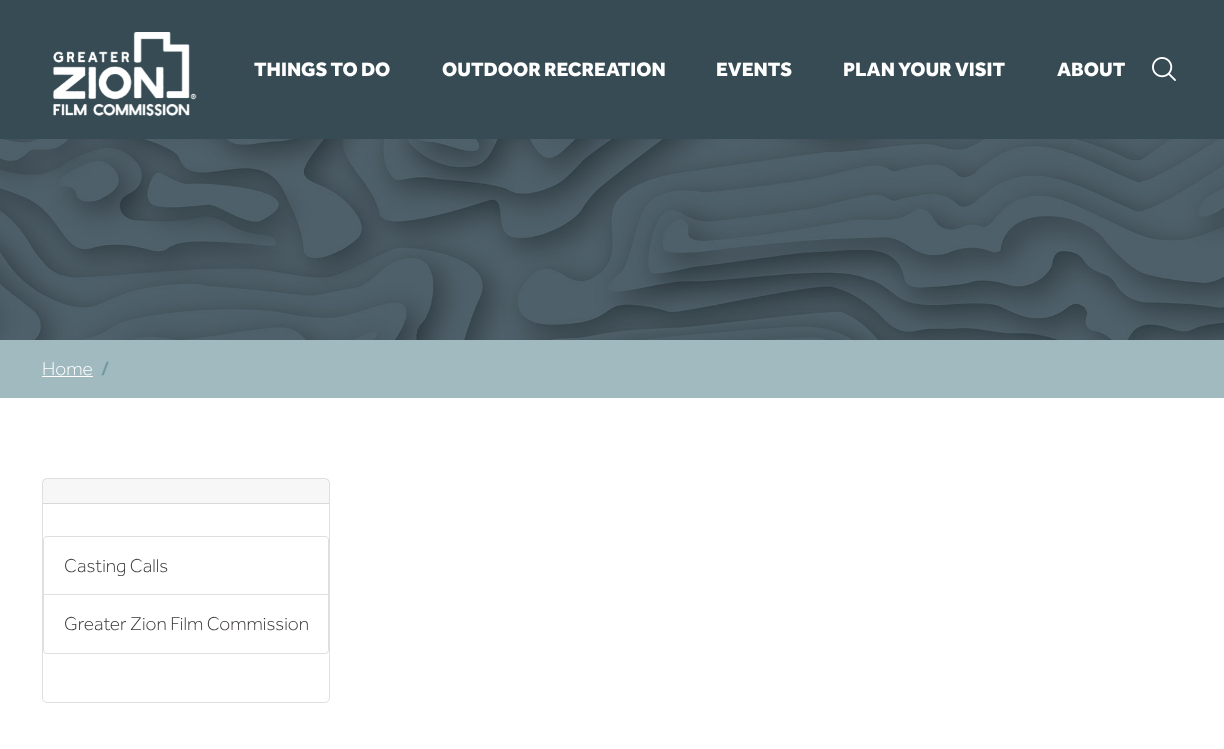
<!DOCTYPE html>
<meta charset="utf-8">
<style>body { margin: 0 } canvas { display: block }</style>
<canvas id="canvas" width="1224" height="749"></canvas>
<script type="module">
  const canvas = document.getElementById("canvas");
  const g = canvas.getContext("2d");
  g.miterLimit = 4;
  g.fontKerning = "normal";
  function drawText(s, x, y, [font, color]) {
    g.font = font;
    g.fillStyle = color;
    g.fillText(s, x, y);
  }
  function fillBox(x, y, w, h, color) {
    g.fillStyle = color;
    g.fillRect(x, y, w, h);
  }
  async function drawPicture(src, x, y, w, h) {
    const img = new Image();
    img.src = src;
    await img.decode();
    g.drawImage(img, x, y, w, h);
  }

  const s1 = ["900 20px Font", "#FFFFFF"];
  const s2 = ["300 19.25px Font", "#FFFFFF"];
  const s3 = ["500 19.25px Font", "#7299A0"];
  const s4 = ["300 19.25px Font", "#3A3736"];

  fillBox(0, 0, 1224, 749, "#FFFFFF");
  fillBox(0, 0, 1224, 139, "#364B54");
  await drawPicture("pic1.png", 53, 32, 144, 85);
  drawText("THINGS TO DO", 254, 76, s1);
  drawText("OUTDOOR RECREATION", 442, 76, s1);
  drawText("EVENTS", 716, 76, s1);
  drawText("PLAN YOUR VISIT", 843, 76, s1);
  drawText("ABOUT", 1057, 76, s1);
  await drawPicture("pic2.png", 1152, 57, 24, 24);
  await drawPicture("pic3.png", 0, 139, 1224, 201);
  fillBox(0, 340, 1224, 58, "#A0BABF");
  drawText("Home", 42, 375, s2);
  fillBox(42, 376, 51, 1, "#FFFFFF");
  drawText("/", 101, 375, s3);
  g.beginPath();
  g.roundRect(42.5, 478.5, 287, 224, 4.5);
  g.strokeStyle = "#DFDFDF";
  g.stroke();
  fillBox(43, 479, 286, 24, "rgba(0, 0, 0, 0.03)");
  fillBox(43, 503, 286, 1, "#D8D8D8");
  g.fillStyle = "#DFDFDF";
  g.beginPath();
  g.moveTo(47, 536);
  g.lineTo(325, 536);
  g.bezierCurveTo(327, 536, 329, 538, 329, 540);
  g.lineTo(329, 594);
  g.lineTo(43, 594);
  g.lineTo(43, 540);
  g.bezierCurveTo(43, 538, 45, 536, 47, 536);
  g.closePath();
  g.moveTo(47, 537);
  g.lineTo(325, 537);
  g.bezierCurveTo(327, 537, 328, 538, 328, 540);
  g.lineTo(328, 594);
  g.lineTo(44, 594);
  g.lineTo(44, 540);
  g.bezierCurveTo(44, 538, 45, 537, 47, 537);
  g.closePath();
  g.fill("evenodd");
  drawText("Casting Calls", 64, 572, s4);
  g.beginPath();
  g.roundRect(43.5, 594.5, 285, 59, [0, 0, 3.5, 3.5]);
  g.stroke();
  drawText("Greater Zion Film Commission", 64, 630, s4);
</script>
